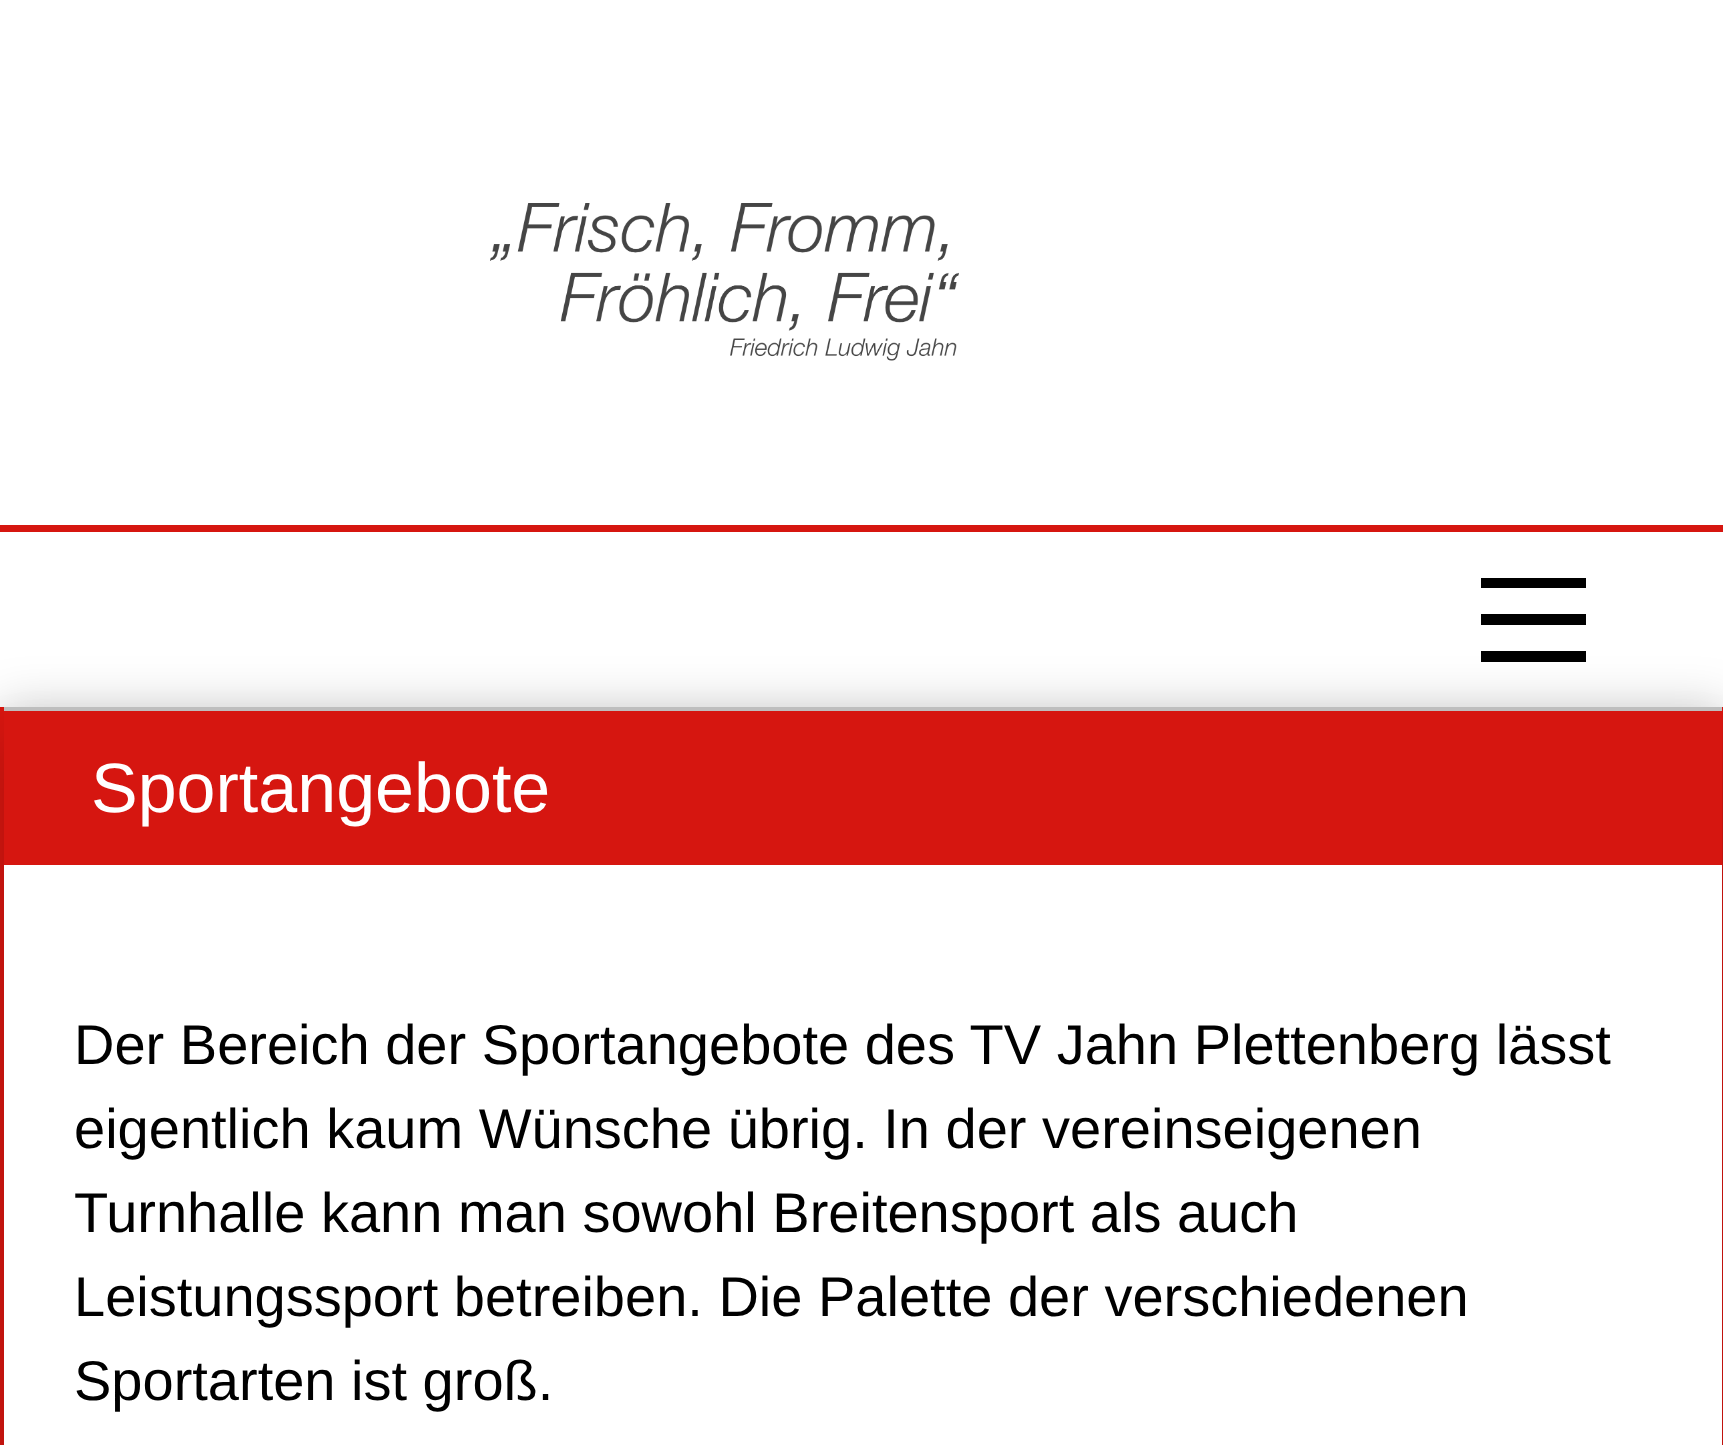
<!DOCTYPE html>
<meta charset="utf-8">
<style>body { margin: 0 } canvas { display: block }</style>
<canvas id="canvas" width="1723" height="1445"></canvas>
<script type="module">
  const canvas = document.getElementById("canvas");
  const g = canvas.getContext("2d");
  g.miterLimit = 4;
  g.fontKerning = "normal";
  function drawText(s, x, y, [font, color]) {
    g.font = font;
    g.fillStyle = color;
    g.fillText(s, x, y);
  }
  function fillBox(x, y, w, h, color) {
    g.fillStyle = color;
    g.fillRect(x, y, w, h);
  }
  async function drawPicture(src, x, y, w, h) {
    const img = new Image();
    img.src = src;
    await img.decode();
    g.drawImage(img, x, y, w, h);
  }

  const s1 = ["70px Liberation Sans", "#FFFFFF"];
  const s2 = ["56px Liberation Sans", "#000000"];

  fillBox(0, 0, 1723, 1445, "#FFFFFF");
  await drawPicture("pic1.png", 490, 203, 469, 158);
  fillBox(0, 525, 1723, 7, "#D61610");
  fillBox(1481, 578, 105, 10, "#000000");
  fillBox(1481, 614, 105, 11, "#000000");
  fillBox(1481, 651, 105, 11, "#000000");
  g.fillStyle = "rgba(0, 0, 0, 0.2)";
  g.filter = "blur(24.5px)";
  g.beginPath();
  g.rect(0, 707, 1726, 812);
  g.fill();
  g.filter = "none";
  fillBox(4, 865, 1718, 580, "#FFFFFF");
  fillBox(1722, 707, 1, 738, "#D61610");
  fillBox(0, 707, 4, 738, "#D61610");
  g.save();
  g.beginPath();
  g.moveTo(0, 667);
  g.lineTo(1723, 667);
  g.lineTo(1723, 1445);
  g.lineTo(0, 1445);
  g.closePath();
  g.moveTo(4, 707);
  g.lineTo(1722, 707);
  g.lineTo(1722, 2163);
  g.lineTo(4, 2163);
  g.closePath();
  g.clip("evenodd");
  g.fillStyle = "rgba(0, 0, 0, 0.2)";
  g.filter = "blur(24.5px)";
  g.beginPath();
  g.rect(4, 742, 1718, 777);
  g.fill();
  g.filter = "none";
  g.restore();
  fillBox(4, 707, 1718, 4, "#BEBEBE");
  fillBox(4, 711, 1718, 154, "#D61610");
  drawText("Sportangebote", 91, 812, s1);
  drawText("Der Bereich der Sportangebote des TV Jahn Plettenberg lässt", 74, 1064, s2);
  drawText("eigentlich kaum Wünsche übrig. In der vereinseigenen", 74, 1148, s2);
  drawText("Turnhalle kann man sowohl Breitensport als auch", 74, 1232, s2);
  drawText("Leistungssport betreiben. Die Palette der verschiedenen", 74, 1316, s2);
  drawText("Sportarten ist groß.", 74, 1400, s2);
</script>
